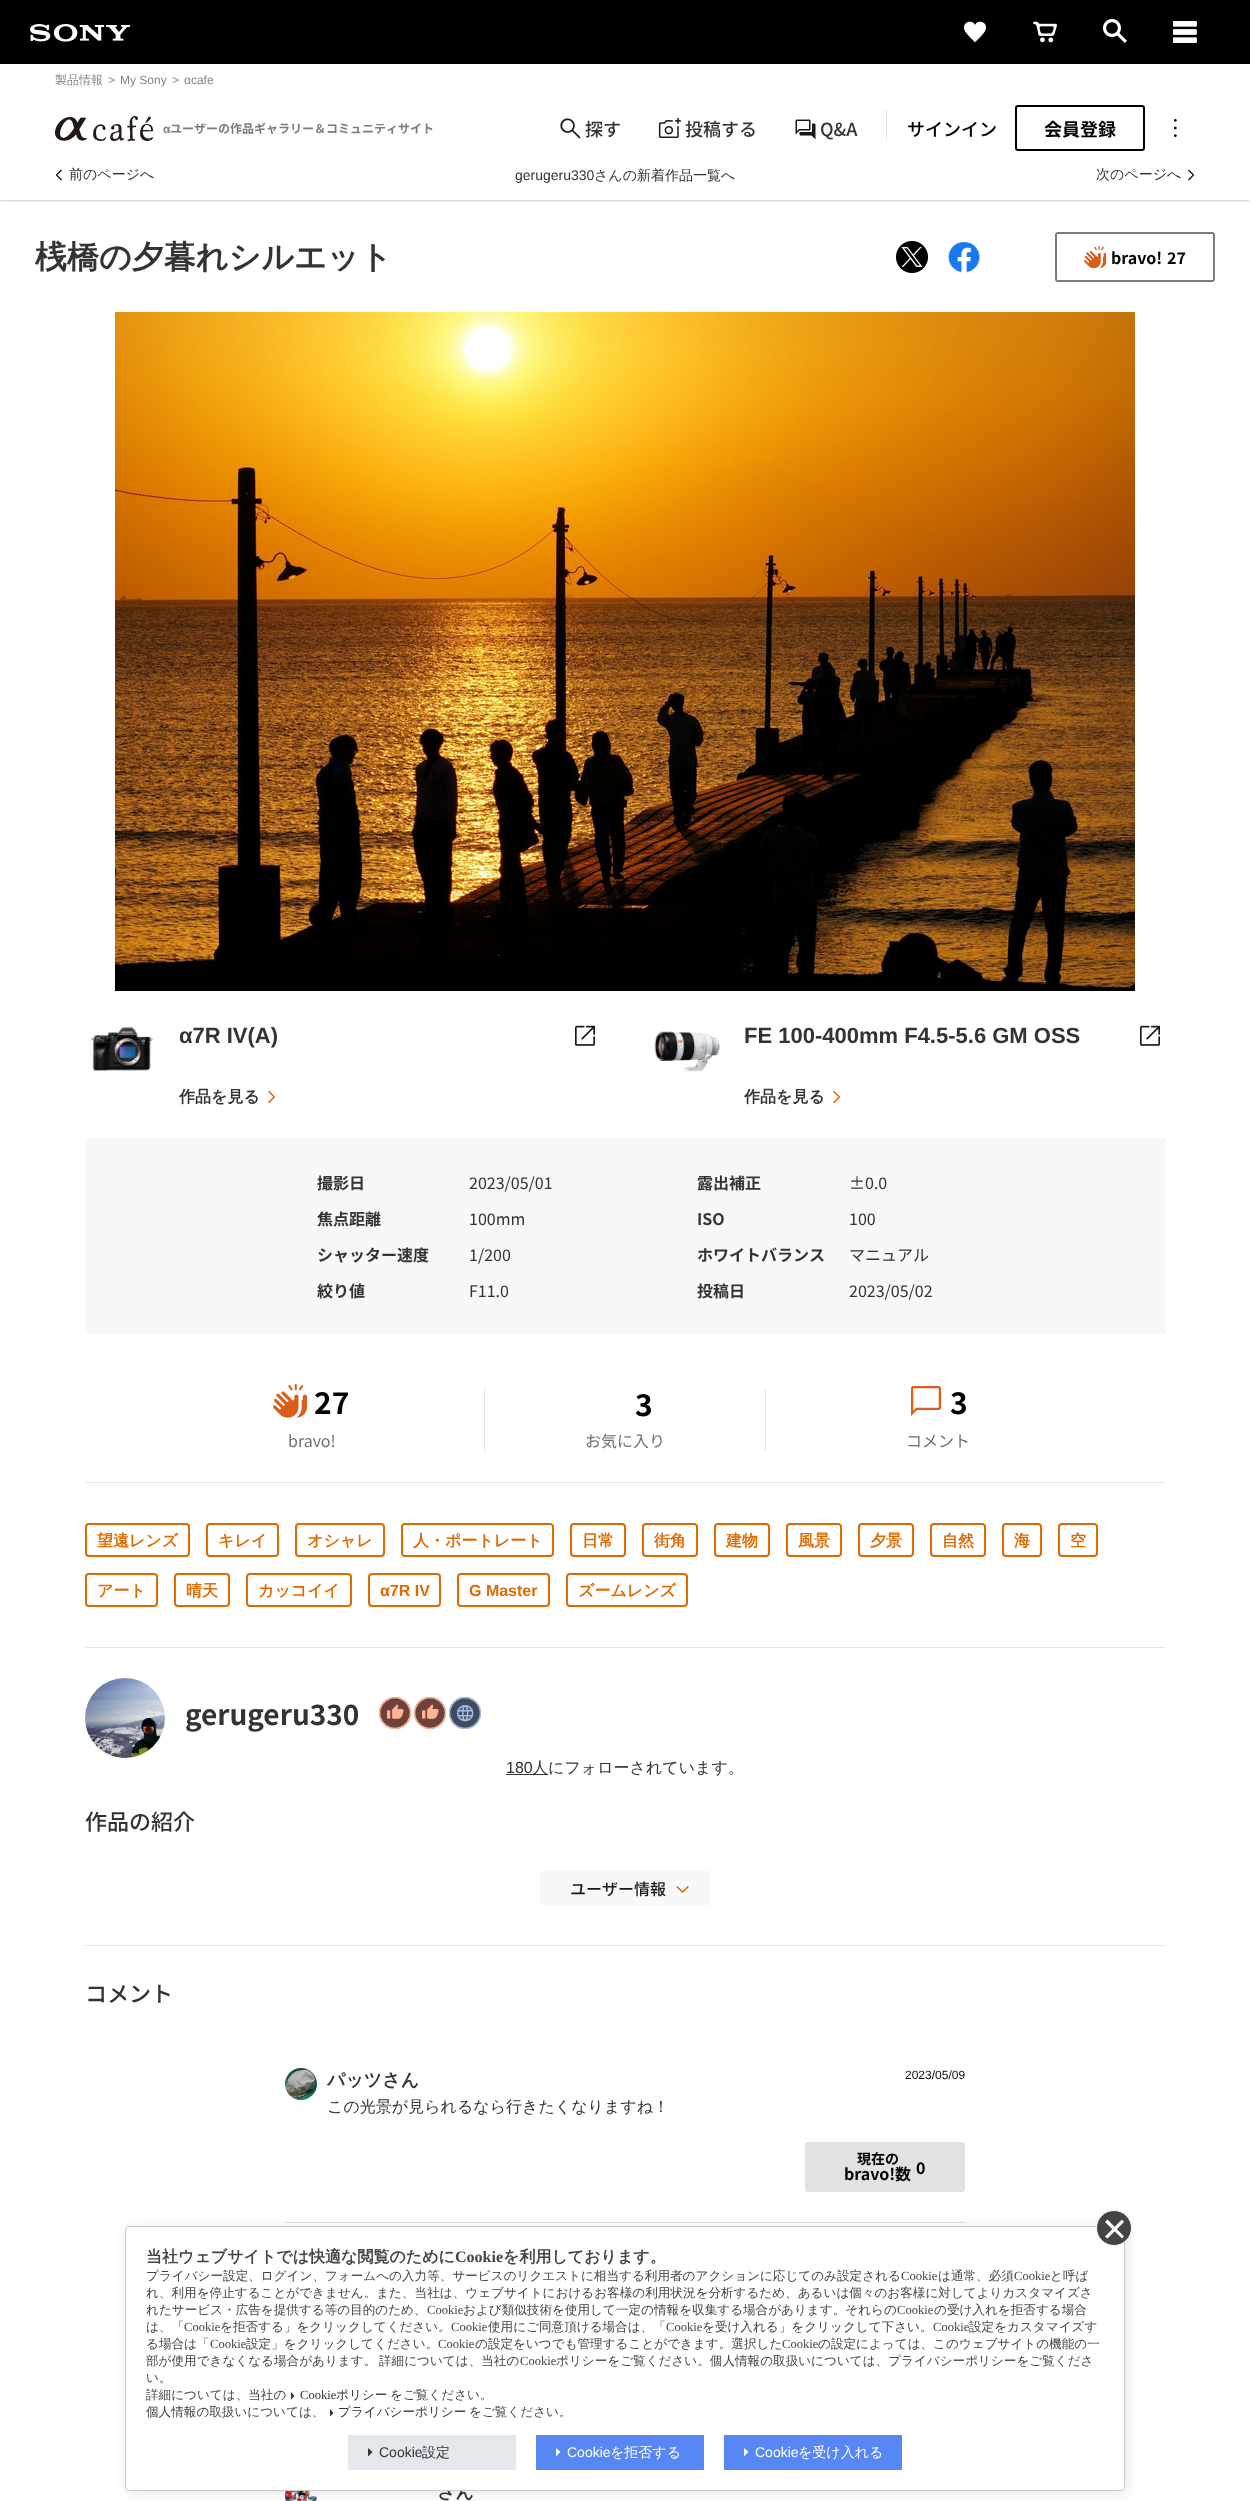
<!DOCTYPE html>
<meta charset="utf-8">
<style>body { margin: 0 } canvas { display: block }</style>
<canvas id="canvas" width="1250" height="2501"></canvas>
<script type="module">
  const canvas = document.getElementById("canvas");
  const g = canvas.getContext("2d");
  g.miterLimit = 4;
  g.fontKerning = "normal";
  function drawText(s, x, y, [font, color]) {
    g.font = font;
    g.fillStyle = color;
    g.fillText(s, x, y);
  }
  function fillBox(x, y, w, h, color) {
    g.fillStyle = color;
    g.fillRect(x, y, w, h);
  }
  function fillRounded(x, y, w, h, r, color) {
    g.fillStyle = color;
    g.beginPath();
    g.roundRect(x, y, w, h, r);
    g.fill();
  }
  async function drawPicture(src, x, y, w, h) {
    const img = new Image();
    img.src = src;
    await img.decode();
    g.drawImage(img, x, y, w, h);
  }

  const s1 = ["500 12px WenQuanYi Zen Hei", "#83838F"];
  const s2 = ["12px Liberation Sans", "#83838F"];
  const s3 = ["bold 12px Liberation Sans", "#7C7C7C"];
  const s4 = ["bold 12px Noto Sans JP", "#7C7C7C"];
  const s5 = ["500 18px Noto Sans JP", "#333333"];
  const s6 = ["500 18px Noto Sans JP", "#000000"];
  const s7 = ["bold 18px Noto Sans JP", "#000000"];
  const s8 = ["500 14px WenQuanYi Zen Hei", "#333333"];
  const s9 = ["14px Liberation Sans", "#333333"];
  const s10 = ["bold 32px WenQuanYi Zen Hei", "#333333"];
  const s11 = ["bold 16px Noto Sans JP", "#000000"];
  const s12 = ["bold 22px Liberation Sans", "#333333"];
  const s13 = ["bold 16px WenQuanYi Zen Hei", "#333333"];
  const s14 = ["bold 16px Noto Sans JP", "#333333"];
  const s15 = ["16px Noto Sans JP", "#333333"];
  const s16 = ["bold 30px Noto Sans JP", "#000000"];
  const s17 = ["16px Noto Sans JP", "#707070"];
  const s18 = ["bold 16px WenQuanYi Zen Hei", "#E06900"];
  const s19 = ["bold 16px Liberation Sans", "#E06900"];
  const s20 = ["bold 28px Noto Sans JP", "#333333"];
  const s21 = ["16px Liberation Sans", "#333333"];
  const s22 = ["500 16px WenQuanYi Zen Hei", "#333333"];
  const s23 = ["500 22px Noto Sans JP", "#333333"];
  const s24 = ["500 16px Noto Sans JP", "#191919"];
  const s25 = ["bold 18px WenQuanYi Zen Hei", "#333333"];
  const s26 = ["12px Liberation Sans", "#0D0D0D"];
  const s27 = ["bold 14px Noto Sans JP", "#000000"];
  const s28 = ["bold 16px WenQuanYi Zen Hei", "#444444"];
  const s29 = ["bold 16px Liberation Serif", "#444444"];
  const s30 = ["500 12.6px WenQuanYi Zen Hei", "#444444"];
  const s31 = ["12.6px Liberation Serif", "#444444"];
  const s32 = ["12.6px Liberation Serif", "#2F353D"];
  const s33 = ["500 12.6px WenQuanYi Zen Hei", "#2F353D"];
  const s34 = ["14px Liberation Sans", "#2F353D"];
  const s35 = ["500 14px WenQuanYi Zen Hei", "#2F353D"];
  const s36 = ["14px Liberation Sans", "#FFFFFF"];
  const s37 = ["500 14px WenQuanYi Zen Hei", "#FFFFFF"];

  fillBox(0, 0, 1250, 2501, "#FFFFFF");
  fillBox(0, 0, 1250, 64, "#000000");
  await drawPicture("pic1.png", 30, 24, 100, 18);
  await drawPicture("pic2.png", 964, 21, 22, 22);
  await drawPicture("pic3.png", 1033, 21, 24, 22);
  await drawPicture("pic4.png", 1103, 19, 24, 24);
  await drawPicture("pic5.png", 1173, 21, 24, 22);
  drawText("製品情報", 55, 84, s1);
  drawText(">", 108, 84, s2);
  drawText("My Sony", 120, 84, s2);
  drawText(">", 172, 84, s2);
  drawText("αcafe", 184, 84, s2);
  await drawPicture("pic6.png", 55, 116, 98, 25);
  drawText("α", 163, 133, s3);
  drawText("ユーザーの作品ギャラリー＆コミュニティサイト", 170, 133, s4);
  await drawPicture("pic7.png", 560, 118, 21, 21);
  drawText("探す", 585, 136, s5);
  await drawPicture("pic8.png", 658, 118, 23, 20);
  drawText("投稿する", 685, 136, s5);
  await drawPicture("pic9.png", 795, 119, 21, 21);
  drawText("Q&A", 820, 136, s5);
  fillBox(886, 110, 1, 30, "#E2E2E2");
  drawText("サインイン", 907, 136, s6);
  g.beginPath();
  g.roundRect(1016, 106, 128, 44, 2);
  g.strokeStyle = "#000000";
  g.lineWidth = 2;
  g.stroke();
  drawText("会員登録", 1044, 136, s7);
  await drawPicture("pic10.png", 1174, 119, 3, 18);
  g.save();
  g.beginPath();
  g.rect(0, 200, 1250, 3);
  g.clip();
  g.fillStyle = "#CCCCCC";
  g.filter = "blur(1px)";
  g.beginPath();
  g.rect(0, 167, 1250, 34);
  g.fill();
  g.filter = "none";
  g.restore();
  g.beginPath();
  g.moveTo(61.5, 180);
  g.lineTo(56.5, 175);
  g.lineTo(61.5, 170);
  g.lineWidth = 1.1;
  g.stroke();
  drawText("前のページへ", 69, 179, s8);
  drawText("gerugeru330", 515, 180, s9);
  drawText("さんの新着作品一覧へ", 594, 180, s8);
  drawText("次のページへ", 1096, 179, s8);
  g.beginPath();
  g.moveTo(1188.5, 180);
  g.lineTo(1193.5, 175);
  g.lineTo(1188.5, 170);
  g.stroke();
  drawText("桟橋の夕暮れシルエット", 35, 268, s10);
  await drawPicture("pic11.png", 896, 241, 32, 32);
  await drawPicture("pic12.png", 948, 241, 32, 32);
  g.beginPath();
  g.roundRect(1056, 233, 158, 48, 2);
  g.strokeStyle = "#7C7C7C";
  g.lineWidth = 2;
  g.stroke();
  await drawPicture("pic13.png", 1084, 246, 22, 22);
  drawText("bravo!", 1111, 264, s11);
  drawText("27", 1167, 264, s11);
  await drawPicture("pic14.png", 115, 312, 1020, 679);
  await drawPicture("pic15.png", 90, 1026, 64, 45);
  drawText("α7R IV(A)", 179, 1043, s12);
  await drawPicture("pic16.png", 575, 1025, 20, 21);
  drawText("作品を見る", 179, 1102, s13);
  await drawPicture("pic17.png", 268, 1090, 7, 14);
  await drawPicture("pic18.png", 654, 1031, 66, 41);
  drawText("FE 100-400mm F4.5-5.6 GM OSS", 744, 1043, s12);
  await drawPicture("pic16.png", 1140, 1025, 20, 21);
  drawText("作品を見る", 744, 1102, s13);
  await drawPicture("pic17.png", 833, 1090, 7, 14);
  fillBox(85, 1138, 1080, 196, "#F7F8F8");
  drawText("撮影日", 317, 1189, s14);
  drawText("2023/05/01", 469, 1189, s15);
  drawText("焦点距離", 317, 1225, s14);
  drawText("100mm", 469, 1225, s15);
  drawText("シャッター速度", 317, 1261, s14);
  drawText("1/200", 469, 1261, s15);
  drawText("絞り値", 317, 1297, s14);
  drawText("F11.0", 469, 1297, s15);
  drawText("露出補正", 697, 1189, s14);
  drawText("±0.0", 849, 1189, s15);
  drawText("ISO", 697, 1225, s14);
  drawText("100", 849, 1225, s15);
  drawText("ホワイトバランス", 697, 1261, s14);
  drawText("マニュアル", 849, 1261, s15);
  drawText("投稿日", 697, 1297, s14);
  drawText("2023/05/02", 849, 1297, s15);
  fillBox(85, 1482, 1080, 1, "#E5E5E5");
  await drawPicture("pic19.png", 273, 1384, 34, 34);
  drawText("27", 314, 1414, s16);
  drawText("bravo!", 288, 1447, s17);
  fillBox(765, 1388, 1, 64, "#E5E5E5");
  fillBox(484, 1388, 1, 64, "#E5E5E5");
  drawText("3", 635, 1416, s16);
  drawText("お気に入り", 585, 1447, s17);
  await drawPicture("pic20.png", 911, 1386, 30, 30);
  drawText("3", 950, 1414, s16);
  drawText("コメント", 906, 1447, s17);
  fillBox(85, 1647, 1080, 1, "#E5E5E5");
  g.beginPath();
  g.roundRect(86, 1524, 103, 32, 3);
  g.strokeStyle = "#E06900";
  g.stroke();
  drawText("望遠レンズ", 97, 1546, s18);
  g.beginPath();
  g.roundRect(207, 1524, 71, 32, 3);
  g.stroke();
  drawText("キレイ", 218, 1546, s18);
  g.beginPath();
  g.roundRect(296, 1524, 88, 32, 3);
  g.stroke();
  drawText("オシャレ", 307, 1546, s18);
  g.beginPath();
  g.roundRect(402, 1524, 151, 32, 3);
  g.stroke();
  drawText("人・ポートレート", 413, 1546, s18);
  g.beginPath();
  g.roundRect(571, 1524, 54, 32, 3);
  g.stroke();
  drawText("日常", 582, 1546, s18);
  g.beginPath();
  g.roundRect(643, 1524, 54, 32, 3);
  g.stroke();
  drawText("街角", 654, 1546, s18);
  g.beginPath();
  g.roundRect(715, 1524, 54, 32, 3);
  g.stroke();
  drawText("建物", 726, 1546, s18);
  g.beginPath();
  g.roundRect(787, 1524, 54, 32, 3);
  g.stroke();
  drawText("風景", 798, 1546, s18);
  g.beginPath();
  g.roundRect(859, 1524, 54, 32, 3);
  g.stroke();
  drawText("夕景", 870, 1546, s18);
  g.beginPath();
  g.roundRect(931, 1524, 54, 32, 3);
  g.stroke();
  drawText("自然", 942, 1546, s18);
  g.beginPath();
  g.roundRect(1003, 1524, 38, 32, 3);
  g.stroke();
  drawText("海", 1014, 1546, s18);
  g.beginPath();
  g.roundRect(1059, 1524, 38, 32, 3);
  g.stroke();
  drawText("空", 1070, 1546, s18);
  g.beginPath();
  g.roundRect(86, 1574, 71, 32, 3);
  g.stroke();
  drawText("アート", 97, 1596, s18);
  g.beginPath();
  g.roundRect(175, 1574, 54, 32, 3);
  g.stroke();
  drawText("晴天", 186, 1596, s18);
  g.beginPath();
  g.roundRect(247, 1574, 104, 32, 3);
  g.stroke();
  drawText("カッコイイ", 258, 1596, s18);
  g.beginPath();
  g.roundRect(369, 1574, 71, 32, 3);
  g.stroke();
  drawText("α7R IV", 380, 1596, s19);
  g.beginPath();
  g.roundRect(458, 1574, 91, 32, 3);
  g.stroke();
  drawText("G Master", 469, 1596, s19);
  g.beginPath();
  g.roundRect(567, 1574, 120, 32, 3);
  g.stroke();
  drawText("ズームレンズ", 578, 1596, s18);
  await drawPicture("pic21.png", 85, 1678, 80, 80);
  drawText("gerugeru330", 185, 1725, s20);
  await drawPicture("pic22.png", 379, 1697, 32, 32);
  await drawPicture("pic22.png", 414, 1697, 32, 32);
  await drawPicture("pic23.png", 449, 1697, 32, 32);
  drawText("180", 506, 1773, s21);
  fillBox(506, 1774, 42, 1, "#333333");
  drawText("人にフォローされています。", 532, 1773, s22);
  drawText("作品の紹介", 85, 1830, s23);
  fillBox(540, 1871, 170, 34, "#F7F8F8");
  drawText("ユーザー情報", 570, 1895, s24);
  await drawPicture("pic24.png", 676, 1886, 13, 7);
  fillBox(85, 1945, 1080, 1, "#E5E5E5");
  drawText("コメント", 85, 2002, s23);
  await drawPicture("pic25.png", 285, 2068, 32, 32);
  drawText("パッツさん", 327, 2086, s25);
  drawText("2023/05/09", 905, 2079, s26);
  drawText("この光景が見られるなら行きたくなりますね！", 327, 2112, s22);
  g.fillStyle = "#E2E2E2";
  g.beginPath();
  g.roundRect(806, 2143, 158, 48, 2);
  g.fill();
  g.strokeStyle = "#E2E2E2";
  g.stroke();
  drawText("現在の", 857, 2164, s27);
  drawText("bravo!数", 844, 2180, s11);
  drawText("0", 916, 2174, s11);
  fillBox(285, 2222, 680, 1, "#E0E0E0");
  await drawPicture("pic26.png", 285, 2491, 32, 10);
  drawText("さん", 437, 2498, s25);
  g.fillStyle = "rgba(0, 0, 0, 0.1)";
  g.filter = "blur(6px)";
  g.beginPath();
  g.roundRect(127, 2228, 1000, 265, 4);
  g.fill();
  g.filter = "none";
  g.fillStyle = "#FFFFFF";
  g.beginPath();
  g.roundRect(125.5, 2226.5, 999, 264, 3.5);
  g.fill();
  g.strokeStyle = "#CCCCCC";
  g.lineWidth = 1;
  g.stroke();
  g.fillStyle = "#444444";
  g.beginPath();
  g.arc(1114, 2228, 17.5, 0, Math.PI * 2);
  g.fill();
  g.strokeStyle = "#FFFFFF";
  g.stroke();
  g.fillStyle = "#FFFFFF";
  g.beginPath();
  g.moveTo(1105, 2236.5);
  g.lineTo(1122, 2219.5);
  g.lineTo(1124, 2222);
  g.lineTo(1107.5, 2238.5);
  g.closePath();
  g.fill();
  g.beginPath();
  g.moveTo(1107.5, 2219.5);
  g.lineTo(1124, 2236.5);
  g.lineTo(1122, 2238.5);
  g.lineTo(1105, 2222);
  g.closePath();
  g.fill();
  drawText("当社ウェブサイトでは快適な閲覧のために", 146, 2262, s28);
  drawText("Cookie", 455, 2262, s29);
  drawText("を利用しております。", 503, 2262, s28);
  drawText("プライバシー設定、ログイン、フォームへの入力等、サービスのリクエストに相当する利用者のアクションに応じてのみ設定される", 146, 2280, s30);
  drawText("Cookie", 901, 2280, s31);
  drawText("は通常、必須", 938, 2280, s30);
  drawText("Cookie", 1014, 2280, s31);
  drawText("と呼ば", 1050, 2280, s30);
  drawText("れ、利用を停止することができません。また、当社は、ウェブサイトにおけるお客様の利用状況を分析するため、あるいは個々のお客様に対してよりカスタマイズさ", 146, 2297, s30);
  drawText("れたサービス・広告を提供する等の目的のため、", 146, 2314, s30);
  drawText("Cookie", 427, 2314, s31);
  drawText("および類似技術を使用して一定の情報を収集する場合があります。それらの", 463, 2314, s30);
  drawText("Cookie", 897, 2314, s31);
  drawText("の受け入れを拒否する場合", 934, 2314, s30);
  drawText("は、「", 146, 2331, s30);
  drawText("Cookie", 184, 2331, s31);
  drawText("を拒否する」をクリックしてください。", 220, 2331, s30);
  drawText("Cookie", 451, 2331, s31);
  drawText("使用にご同意頂ける場合は、「", 488, 2331, s30);
  drawText("Cookie", 666, 2331, s31);
  drawText("を受け入れる」をクリックして下さい。", 702, 2331, s30);
  drawText("Cookie", 933, 2331, s31);
  drawText("設定をカスタマイズす", 969, 2331, s30);
  drawText("る場合は「", 146, 2348, s30);
  drawText("Cookie", 210, 2348, s31);
  drawText("設定」をクリックしてください。", 246, 2348, s30);
  drawText("Cookie", 438, 2348, s31);
  drawText("の設定をいつでも管理することができます。選択した", 475, 2348, s30);
  drawText("Cookie", 782, 2348, s31);
  drawText("の設定によっては、このウェブサイトの機能の一", 818, 2348, s30);
  drawText("部が使用できなくなる場合があります。", 146, 2365, s30);
  drawText("詳細については、当社の", 379, 2365, s30);
  drawText("Cookie", 520, 2365, s31);
  drawText("ポリシーをご覧ください。個人情報の取扱いについては、プライバシーポリシーをご覧くださ", 556, 2365, s30);
  drawText("い。", 146, 2382, s30);
  drawText("詳細については、当社の", 146, 2399, s30);
  g.fillStyle = "#2F353D";
  g.beginPath();
  g.moveTo(291, 2392);
  g.lineTo(294.5, 2396);
  g.lineTo(291, 2399.5);
  g.closePath();
  g.fill();
  drawText("Cookie", 300, 2399, s32);
  drawText("ポリシー", 336, 2399, s33);
  drawText("をご覧ください。", 390, 2399, s30);
  drawText("個人情報の取扱いについては、", 146, 2416, s30);
  g.fillStyle = "#2F353D";
  g.beginPath();
  g.moveTo(330, 2409);
  g.lineTo(333.5, 2413);
  g.lineTo(330, 2416.5);
  g.closePath();
  g.fill();
  drawText("プライバシーポリシー", 338, 2416, s33);
  drawText("をご覧ください。", 469, 2416, s30);
  fillRounded(348, 2435, 168, 35, 1, "#E4E7EC");
  g.fillStyle = "#2F353D";
  g.beginPath();
  g.moveTo(368, 2448);
  g.lineTo(372.5, 2452);
  g.lineTo(368, 2456.5);
  g.closePath();
  g.fill();
  drawText("Cookie", 379, 2457, s34);
  drawText("設定", 422, 2457, s35);
  fillRounded(536, 2435, 168, 35, 1, "#5787F4");
  g.fillStyle = "#FFFFFF";
  g.beginPath();
  g.moveTo(556, 2448);
  g.lineTo(560.5, 2452);
  g.lineTo(556, 2456.5);
  g.closePath();
  g.fill();
  drawText("Cookie", 567, 2457, s36);
  drawText("を拒否する", 610, 2457, s37);
  fillRounded(724, 2435, 178, 35, 1, "#5787F4");
  g.fillStyle = "#FFFFFF";
  g.beginPath();
  g.moveTo(744, 2448);
  g.lineTo(748.5, 2452);
  g.lineTo(744, 2456.5);
  g.closePath();
  g.fill();
  drawText("Cookie", 755, 2457, s36);
  drawText("を受け入れる", 798, 2457, s37);
</script>
